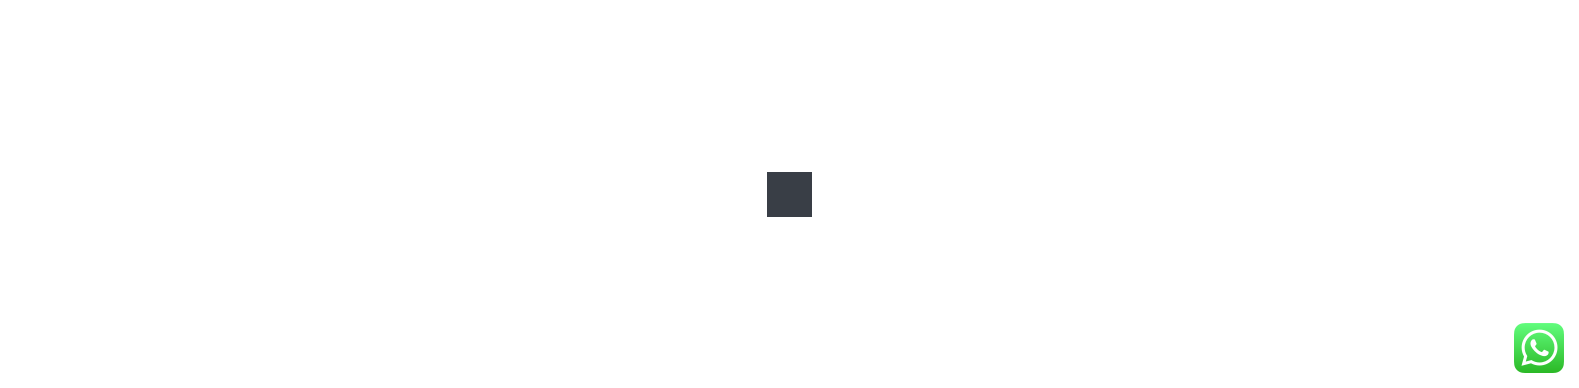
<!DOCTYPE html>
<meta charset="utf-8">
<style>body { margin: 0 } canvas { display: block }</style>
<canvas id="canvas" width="1579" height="388"></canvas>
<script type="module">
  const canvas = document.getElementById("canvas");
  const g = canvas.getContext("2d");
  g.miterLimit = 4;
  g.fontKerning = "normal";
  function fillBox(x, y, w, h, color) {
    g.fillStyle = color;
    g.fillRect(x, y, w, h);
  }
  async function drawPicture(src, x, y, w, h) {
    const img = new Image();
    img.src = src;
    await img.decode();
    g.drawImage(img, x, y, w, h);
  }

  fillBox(0, 0, 1579, 388, "#FFFFFF");
  fillBox(767, 172, 45, 45, "#393E46");
  await drawPicture("pic1.png", 1514, 323, 50, 50);
</script>
